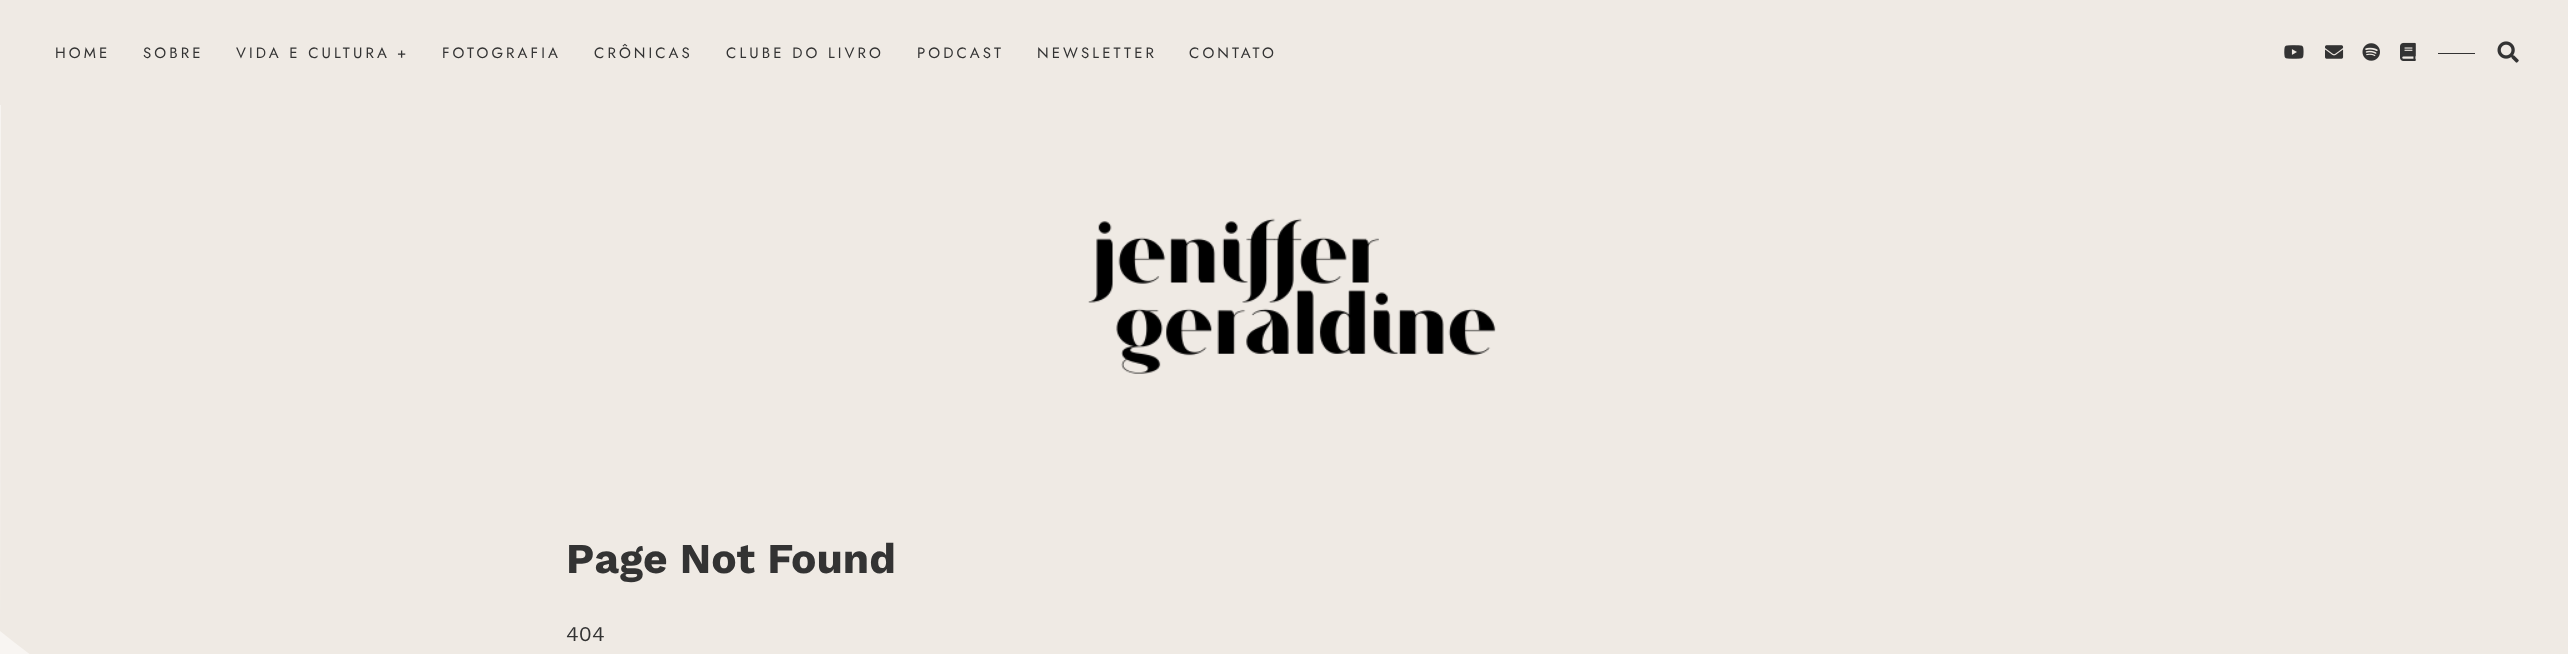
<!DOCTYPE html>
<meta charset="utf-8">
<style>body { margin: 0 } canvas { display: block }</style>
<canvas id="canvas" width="2568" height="654"></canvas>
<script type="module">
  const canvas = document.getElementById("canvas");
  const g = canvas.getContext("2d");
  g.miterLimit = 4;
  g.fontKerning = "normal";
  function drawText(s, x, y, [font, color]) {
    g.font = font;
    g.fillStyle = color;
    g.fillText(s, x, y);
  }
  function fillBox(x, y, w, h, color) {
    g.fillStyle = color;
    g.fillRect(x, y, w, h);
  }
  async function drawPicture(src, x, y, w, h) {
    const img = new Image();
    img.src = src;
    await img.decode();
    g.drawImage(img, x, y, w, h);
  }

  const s1 = ["15px Jost", "#333333"];
  const s2 = ["bold 42.5px Work Sans", "#333333"];
  const s3 = ["21px Work Sans", "#333333"];

  fillBox(0, 0, 2568, 654, "#F8F5F2");
  g.fillStyle = "#EFEAE4";
  g.beginPath();
  g.moveTo(0, 631);
  g.bezierCurveTo(492, 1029, 960, 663, 1284, 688);
  g.bezierCurveTo(1608, 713, 1940, 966, 2159, 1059);
  g.bezierCurveTo(2377, 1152, 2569, 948, 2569, 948);
  g.lineTo(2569, 64);
  g.lineTo(1, 64);
  g.closePath();
  g.fill();
  fillBox(0, 0, 2568, 105, "#EFEAE4");
  g.letterSpacing = "3.1px";
  drawText("HOME", 55, 58, s1);
  drawText("SOBRE", 143, 58, s1);
  drawText("VIDA E CULTURA", 236, 58, s1);
  drawText("+", 397, 58, s1);
  drawText("FOTOGRAFIA", 442, 58, s1);
  drawText("CRÔNICAS", 594, 58, s1);
  drawText("CLUBE DO LIVRO", 726, 58, s1);
  drawText("PODCAST", 917, 58, s1);
  drawText("NEWSLETTER", 1037, 58, s1);
  drawText("CONTATO", 1189, 58, s1);
  await drawPicture("pic1.png", 2284, 45, 20, 14);
  await drawPicture("pic2.png", 2325, 45, 19, 14);
  await drawPicture("pic3.png", 2362, 43, 18, 18);
  await drawPicture("pic4.png", 2400, 42, 16, 19);
  fillBox(2438, 53, 37, 1, "#333333");
  await drawPicture("pic5.png", 2497, 41, 22, 22);
  await drawPicture("pic6.png", 1088, 218, 408, 156);
  g.letterSpacing = "0px";
  drawText("Page Not Found", 566, 573, s2);
  drawText("404", 566, 641, s3);
</script>
